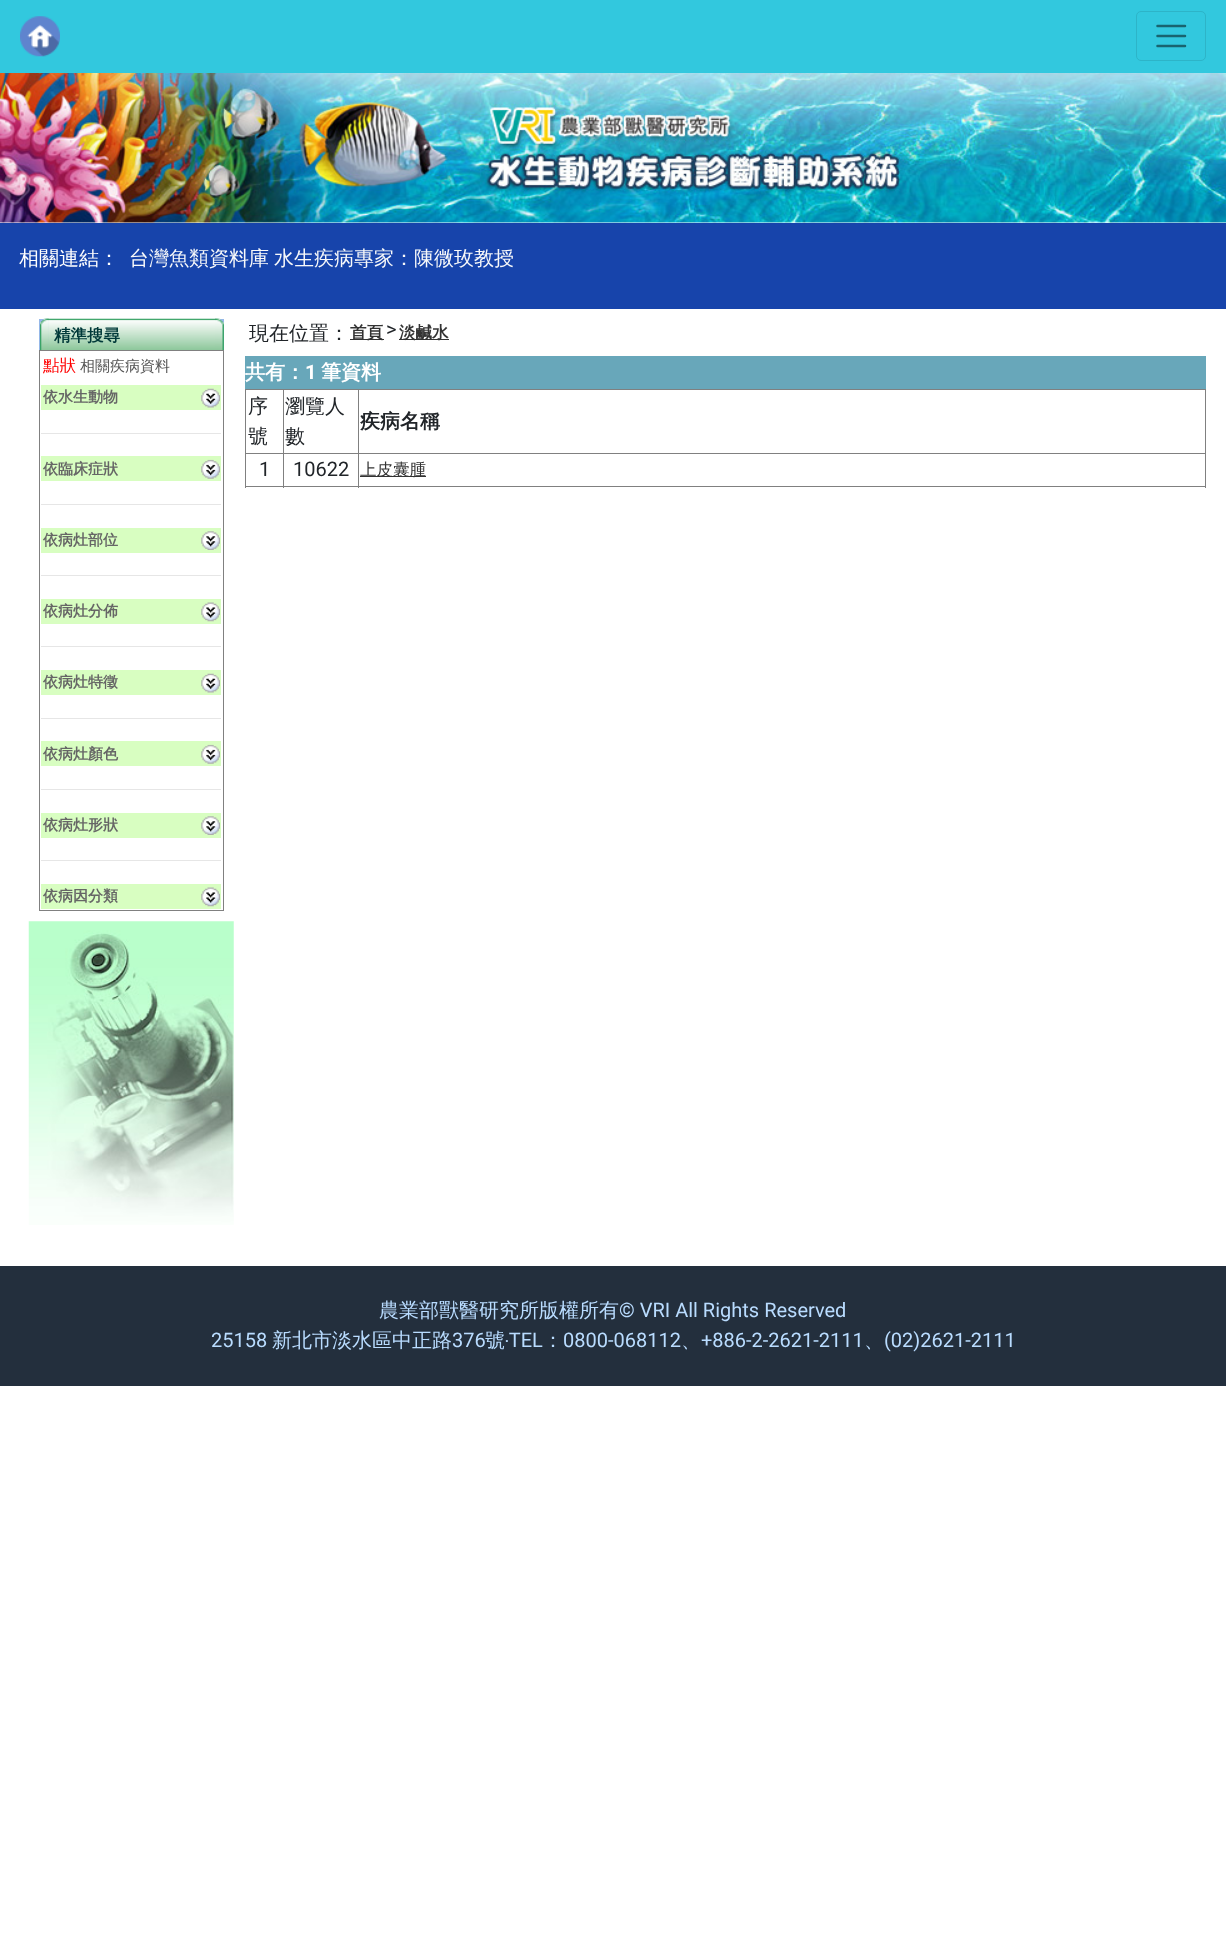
<!DOCTYPE html>
<meta charset="utf-8">
<style>body { margin: 0 } canvas { display: block }</style>
<canvas id="canvas" width="1226" height="1943"></canvas>
<script type="module">
  const canvas = document.getElementById("canvas");
  const g = canvas.getContext("2d");
  g.miterLimit = 4;
  g.fontKerning = "normal";
  function drawText(s, x, y, [font, color]) {
    g.font = font;
    g.fillStyle = color;
    g.fillText(s, x, y);
  }
  function fillBox(x, y, w, h, color) {
    g.fillStyle = color;
    g.fillRect(x, y, w, h);
  }
  async function drawPicture(src, x, y, w, h) {
    const img = new Image();
    img.src = src;
    await img.decode();
    g.drawImage(img, x, y, w, h);
  }

  const s1 = ["500 20px WenQuanYi Zen Hei", "#FFFFFF"];
  const s2 = ["500 20px WenQuanYi Zen Hei", "#F8F9FA"];
  const s3 = ["bold 16.5px WenQuanYi Zen Hei", "#003939"];
  const s4 = ["500 16.5px WenQuanYi Zen Hei", "#FF0000"];
  const s5 = ["500 15px WenQuanYi Zen Hei", "#555555"];
  const s6 = ["bold 15px WenQuanYi Zen Hei", "#666666"];
  const s7 = ["500 20px WenQuanYi Zen Hei", "#212529"];
  const s8 = ["bold 16.5px WenQuanYi Zen Hei", "#333333"];
  const s9 = ["20px Roboto", "#212529"];
  const s10 = ["bold 20px WenQuanYi Zen Hei", "#FFFFFF"];
  const s11 = ["bold 20px Roboto", "#FFFFFF"];
  const s12 = ["bold 20px WenQuanYi Zen Hei", "#212529"];
  const s13 = ["500 16.5px WenQuanYi Zen Hei", "#333333"];
  const s14 = ["500 20px WenQuanYi Zen Hei", "#B9DCFF"];
  const s15 = ["20px Roboto", "#B9DCFF"];

  fillBox(0, 0, 1226, 1943, "#FFFFFF");
  fillBox(0, 0, 1226, 73, "#32C8DE");
  await drawPicture("pic1.png", 20, 16, 40, 41);
  g.beginPath();
  g.roundRect(1136.5, 11.5, 69, 49, 4.5);
  g.strokeStyle = "#2DB4C8";
  g.stroke();
  g.beginPath();
  g.moveTo(1157.5, 26);
  g.lineTo(1185, 26);
  g.moveTo(1157.5, 36);
  g.lineTo(1185, 36);
  g.moveTo(1157.5, 46);
  g.lineTo(1185, 46);
  g.strokeStyle = "#19646F";
  g.lineWidth = 2.5;
  g.lineCap = "round";
  g.stroke();
  await drawPicture("pic2.png", 0, 73, 1226, 150);
  fillBox(0, 223, 1226, 86, "#1744AB");
  drawText("相關連結：", 19, 265, s1);
  drawText("台灣魚類資料庫", 129, 265, s2);
  drawText("水生疾病專家：陳微玫教授", 274, 265, s2);
  fillBox(39, 319, 185, 31, "#95B7E8");
  await drawPicture("pic3.png", 40, 318, 9, 32);
  await drawPicture("pic5.png", 48, 318, 167, 32);
  await drawPicture("pic4.png", 40, 318, 9, 32);
  drawText("精準搜尋", 54, 341, s3);
  await drawPicture("pic6.png", 215, 318, 9, 32);
  await drawPicture("pic7.png", 215, 318, 9, 32);
  fillBox(39, 350, 185, 1, "#808080");
  fillBox(223, 350, 1, 561, "#808080");
  fillBox(39, 910, 185, 1, "#808080");
  fillBox(39, 350, 1, 561, "#808080");
  drawText("點狀", 43, 371, s4);
  drawText("相關疾病資料", 80, 371, s5);
  fillBox(41, 385, 180, 25, "#D8FEC1");
  drawText("依水生動物", 43, 402, s6);
  await drawPicture("pic8.png", 201, 388, 19, 20);
  fillBox(41, 433, 180, 1, "#E6E6E6");
  fillBox(41, 456, 180, 25, "#D8FEC1");
  drawText("依臨床症狀", 43, 474, s6);
  await drawPicture("pic9.png", 201, 459, 19, 20);
  fillBox(41, 504, 180, 1, "#E6E6E6");
  fillBox(41, 528, 180, 25, "#D8FEC1");
  drawText("依病灶部位", 43, 545, s6);
  await drawPicture("pic10.png", 201, 531, 19, 19);
  fillBox(41, 575, 180, 1, "#E6E6E6");
  fillBox(41, 599, 180, 25, "#D8FEC1");
  drawText("依病灶分佈", 43, 616, s6);
  await drawPicture("pic11.png", 201, 602, 19, 20);
  fillBox(41, 646, 180, 1, "#E6E6E6");
  fillBox(41, 670, 180, 25, "#D8FEC1");
  drawText("依病灶特徵", 43, 687, s6);
  await drawPicture("pic8.png", 201, 673, 19, 20);
  fillBox(41, 718, 180, 1, "#E6E6E6");
  fillBox(41, 741, 180, 25, "#D8FEC1");
  drawText("依病灶顏色", 43, 759, s6);
  await drawPicture("pic9.png", 201, 744, 19, 20);
  fillBox(41, 789, 180, 1, "#E6E6E6");
  fillBox(41, 813, 180, 25, "#D8FEC1");
  drawText("依病灶形狀", 43, 830, s6);
  await drawPicture("pic10.png", 201, 816, 19, 19);
  fillBox(41, 860, 180, 1, "#E6E6E6");
  fillBox(41, 884, 180, 25, "#D8FEC1");
  drawText("依病因分類", 43, 901, s6);
  await drawPicture("pic11.png", 201, 887, 19, 20);
  await drawPicture("pic12.png", 28, 921, 206, 304);
  drawText("現在位置：", 249, 340, s7);
  fillBox(350, 339, 34, 1, "#333333");
  drawText("首頁", 350, 338, s8);
  drawText(">", 386, 336, s9);
  fillBox(399, 339, 50, 1, "#333333");
  drawText("淡鹹水", 399, 338, s8);
  fillBox(245, 356, 961, 33, "#68A7BA");
  drawText("共有：", 245, 379, s10);
  drawText("1", 305, 379, s11);
  drawText("筆資料", 321, 379, s10);
  fillBox(245, 389, 961, 1, "#808080");
  fillBox(1205, 389, 1, 99, "#808080");
  fillBox(245, 486, 961, 1, "#808080");
  fillBox(245, 389, 1, 99, "#808080");
  drawText("序", 248, 413, s7);
  drawText("號", 248, 443, s7);
  fillBox(358, 453, 848, 1, "#808080");
  fillBox(358, 453, 1, 35, "#808080");
  fillBox(283, 453, 76, 1, "#808080");
  fillBox(283, 453, 1, 35, "#808080");
  fillBox(245, 453, 39, 1, "#808080");
  fillBox(283, 389, 1, 65, "#808080");
  drawText("瀏覽人", 285, 413, s7);
  drawText("數", 285, 443, s7);
  fillBox(358, 389, 1, 65, "#808080");
  drawText("疾病名稱", 360, 428, s12);
  drawText("1", 259, 476, s9);
  drawText("10622", 293, 476, s9);
  fillBox(360, 476, 66, 1, "#333333");
  drawText("上皮囊腫", 360, 475, s13);
  fillBox(0, 1266, 1226, 120, "#232F3D");
  drawText("農業部獸醫研究所版權所有", 379, 1317, s14);
  drawText("© VRI All Rights Reserved", 619, 1317, s15);
  drawText("25158", 211, 1347, s15);
  drawText("新北市淡水區中正路", 272, 1347, s14);
  drawText("376", 452, 1347, s15);
  drawText("號", 485, 1347, s14);
  drawText("‧TEL", 505, 1347, s15);
  drawText("：", 543, 1347, s14);
  drawText("0800-068112", 563, 1347, s15);
  drawText("+886-2-2621-2111", 701, 1347, s15);
  drawText("(02)2621-2111", 884, 1347, s15);
  drawText("、", 681, 1347, s14);
  drawText("、", 864, 1347, s14);
</script>
